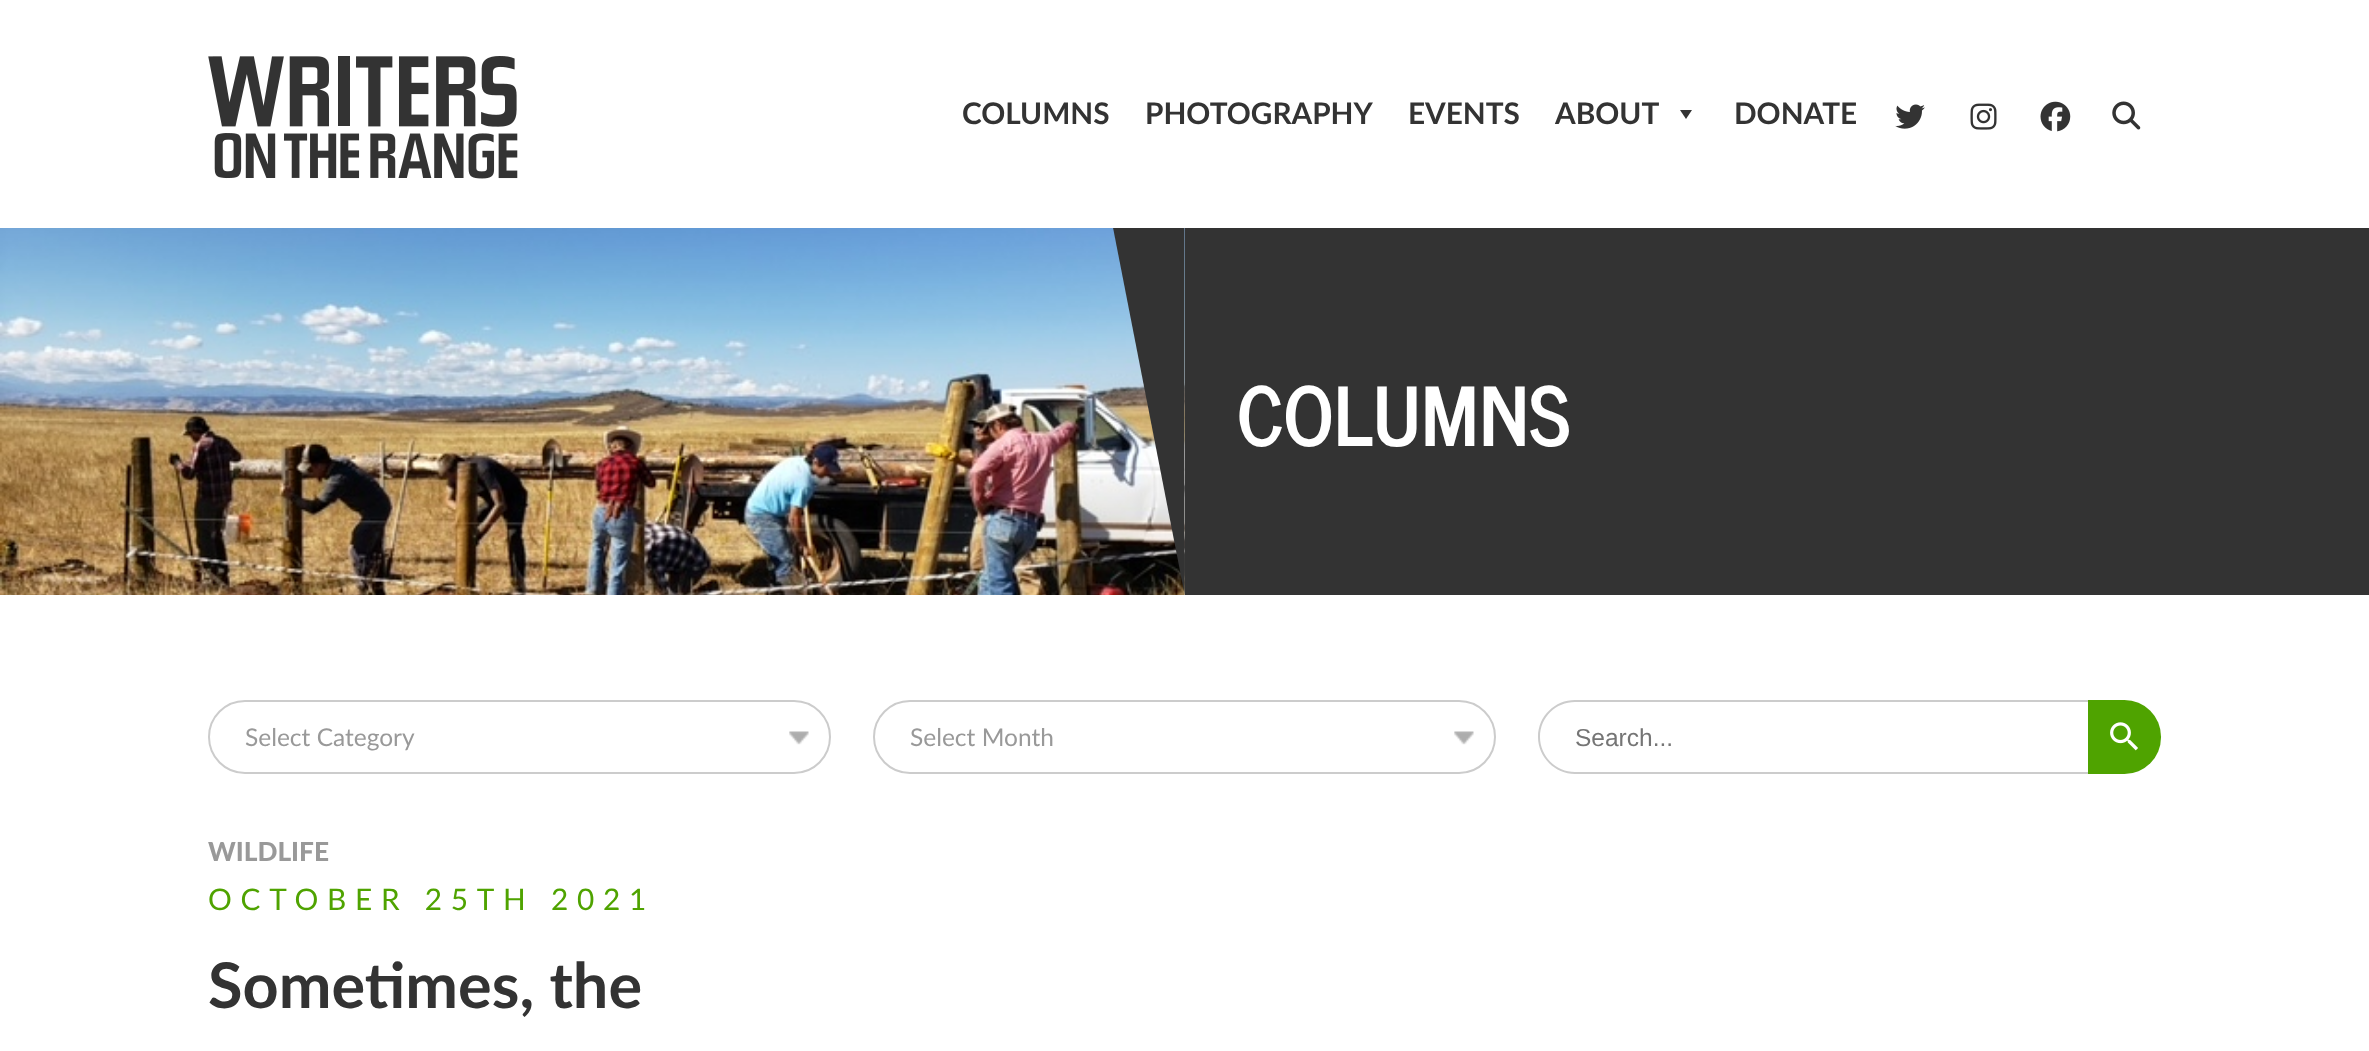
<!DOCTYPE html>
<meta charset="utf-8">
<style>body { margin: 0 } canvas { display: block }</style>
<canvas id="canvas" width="2369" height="1051"></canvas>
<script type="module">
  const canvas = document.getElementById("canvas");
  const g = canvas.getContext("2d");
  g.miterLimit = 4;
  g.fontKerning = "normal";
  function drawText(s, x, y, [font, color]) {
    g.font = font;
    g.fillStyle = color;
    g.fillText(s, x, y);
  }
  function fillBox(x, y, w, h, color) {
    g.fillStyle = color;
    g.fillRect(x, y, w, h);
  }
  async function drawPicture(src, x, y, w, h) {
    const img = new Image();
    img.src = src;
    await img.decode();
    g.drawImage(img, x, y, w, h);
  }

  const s1 = ["bold 29.75px Lato", "#333333"];
  const s2 = ["bold 80.5px News Cycle", "#FFFFFF"];
  const s3 = ["24.5px Lato", "#999999"];
  const s4 = ["24.5px Liberation Sans", "#757575"];
  const s5 = ["900 26.25px Lato", "#999999"];
  const s6 = ["29.75px Lato", "#4FA300"];
  const s7 = ["bold 63px Lato", "#333333"];

  fillBox(0, 0, 2369, 1051, "#FFFFFF");
  await drawPicture("pic1.png", 208, 56, 310, 123);
  drawText("COLUMNS", 962, 124, s1);
  drawText("PHOTOGRAPHY", 1145, 124, s1);
  drawText("EVENTS", 1408, 124, s1);
  drawText("ABOUT", 1555, 124, s1);
  g.beginPath();
  g.moveTo(1692, 110);
  g.lineTo(1686, 119);
  g.lineTo(1680, 110);
  g.closePath();
  g.fill();
  drawText("DONATE", 1734, 124, s1);
  await drawPicture("pic2.png", 1895, 104, 30, 25);
  await drawPicture("pic3.png", 1970, 103, 27, 27);
  await drawPicture("pic4.png", 2040, 101, 31, 31);
  await drawPicture("pic5.png", 2112, 101, 29, 29);
  await drawPicture("pic6.png", 0, 228, 1185, 367);
  fillBox(1185, 228, 1184, 367, "#333333");
  drawText("COLUMNS", 1237, 446, s2);
  await drawPicture("pic7.png", 789, 731, 20, 14);
  g.beginPath();
  g.roundRect(209, 701, 621, 72, 36);
  g.strokeStyle = "#CCCCCC";
  g.lineWidth = 2;
  g.stroke();
  drawText("Select Category", 245, 746, s3);
  await drawPicture("pic7.png", 1454, 731, 20, 14);
  g.beginPath();
  g.roundRect(874, 701, 621, 72, 36);
  g.stroke();
  drawText("Select Month", 910, 746, s3);
  g.fillStyle = "#CCCCCC";
  g.beginPath();
  g.moveTo(1575, 700);
  g.lineTo(2088, 700);
  g.lineTo(2088, 774);
  g.lineTo(1575, 774);
  g.bezierCurveTo(1555, 774, 1538, 757, 1538, 737);
  g.bezierCurveTo(1538, 716, 1555, 700, 1575, 700);
  g.closePath();
  g.moveTo(1575, 702);
  g.lineTo(2088, 702);
  g.lineTo(2088, 772);
  g.lineTo(1575, 772);
  g.bezierCurveTo(1556, 772, 1540, 756, 1540, 737);
  g.bezierCurveTo(1540, 717, 1556, 702, 1575, 702);
  g.closePath();
  g.fill("evenodd");
  drawText("Search...", 1575, 746, s4);
  g.fillStyle = "#4FA300";
  g.beginPath();
  g.roundRect(2088, 700, 73, 74, [0, 36.5, 36.5, 0]);
  g.fill();
  await drawPicture("pic8.png", 2110, 722, 28, 29);
  drawText("WILDLIFE", 208, 861, s5);
  g.letterSpacing = "8.75px";
  drawText("OCTOBER 25TH 2021", 208, 910, s6);
  g.letterSpacing = "0px";
  drawText("Sometimes, the", 208, 1008, s7);
</script>
